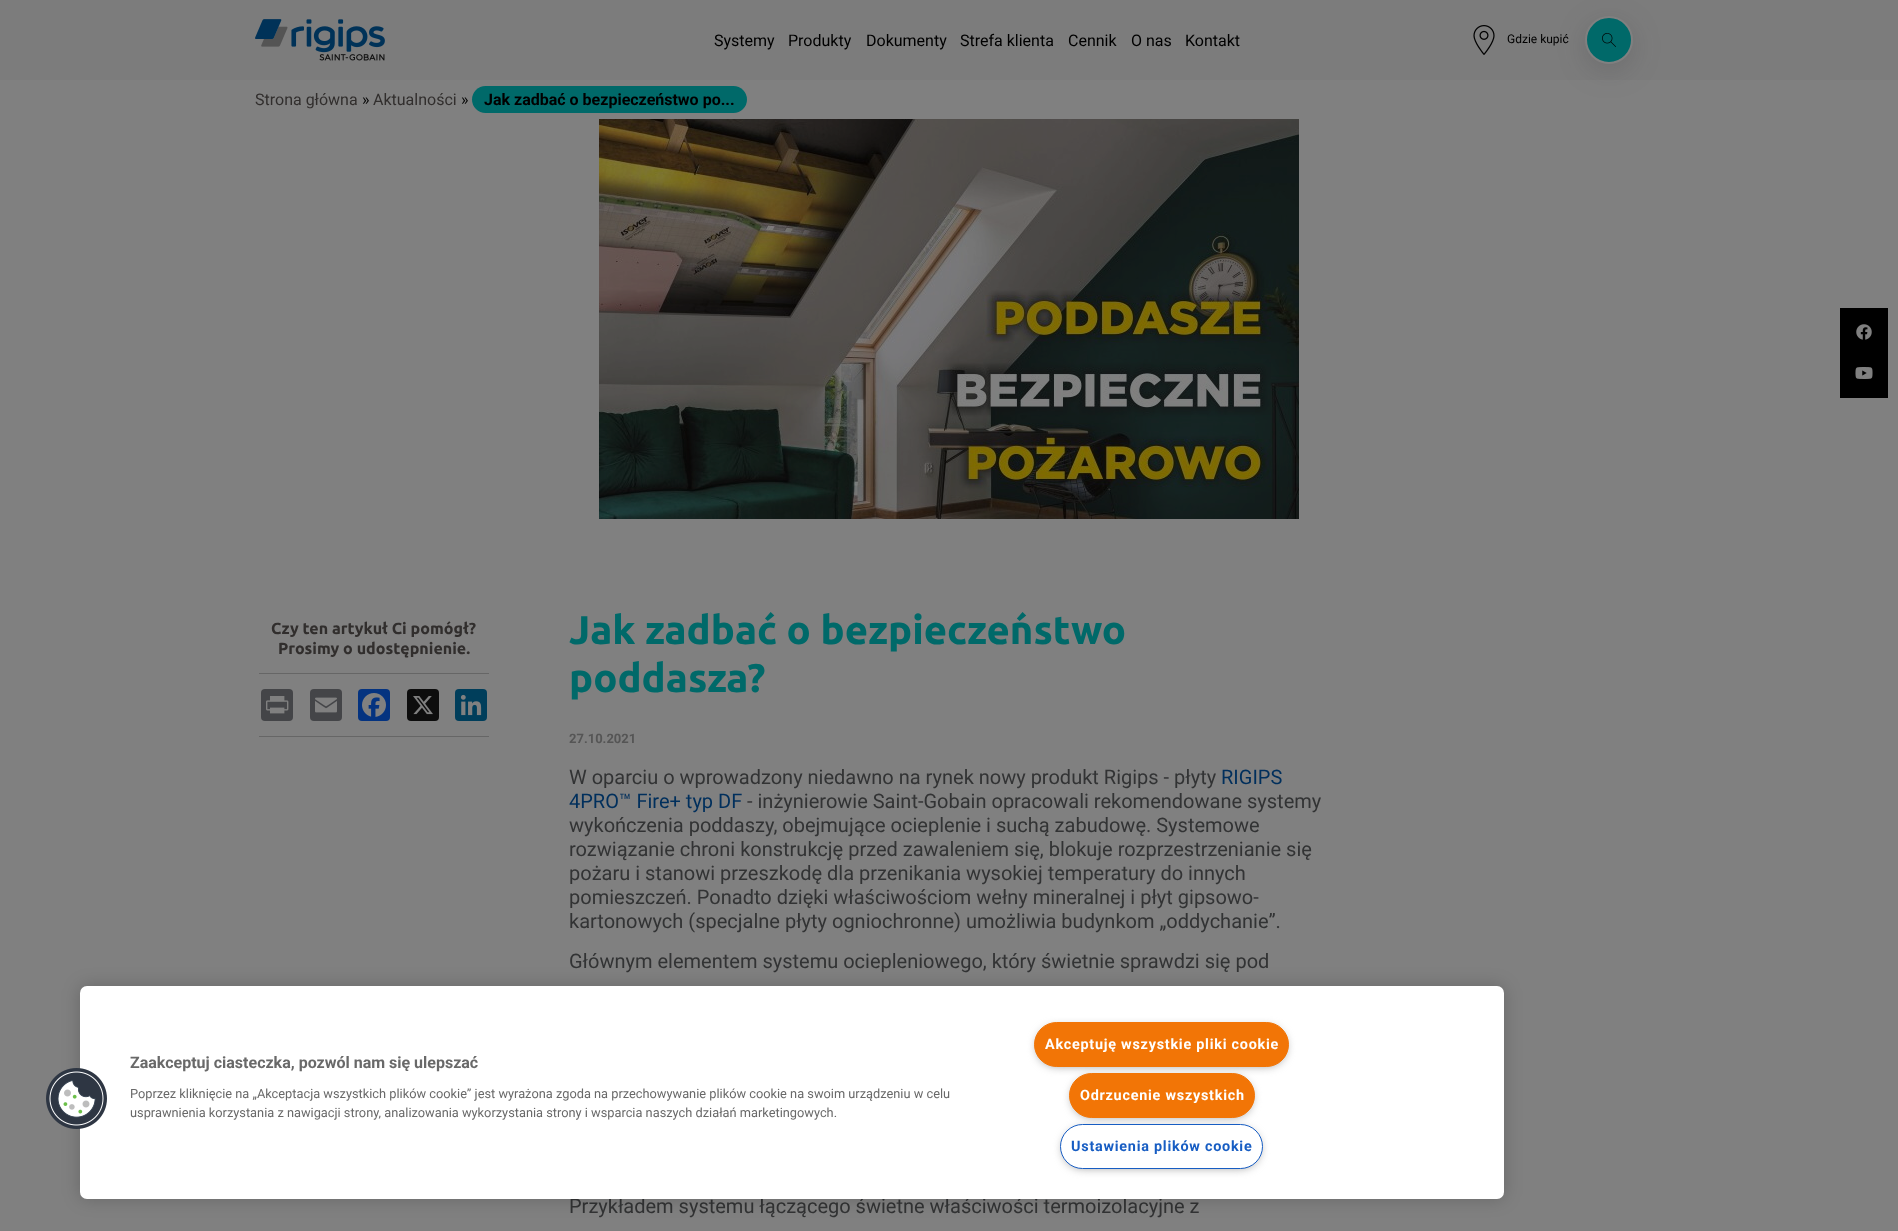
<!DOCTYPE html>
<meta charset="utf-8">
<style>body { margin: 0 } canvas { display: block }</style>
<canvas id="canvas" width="1898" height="1231"></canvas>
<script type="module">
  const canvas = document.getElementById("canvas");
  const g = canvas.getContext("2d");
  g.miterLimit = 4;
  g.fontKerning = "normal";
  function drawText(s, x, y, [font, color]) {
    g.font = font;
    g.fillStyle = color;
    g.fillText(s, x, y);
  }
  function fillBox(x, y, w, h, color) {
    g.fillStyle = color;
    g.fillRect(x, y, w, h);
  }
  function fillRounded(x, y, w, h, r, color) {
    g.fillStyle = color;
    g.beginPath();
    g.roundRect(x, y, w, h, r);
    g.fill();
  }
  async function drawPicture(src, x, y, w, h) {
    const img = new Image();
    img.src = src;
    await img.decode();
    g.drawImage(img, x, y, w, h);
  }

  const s1 = ["16px Roboto", "#000000"];
  const s2 = ["12px Roboto", "#000000"];
  const s3 = ["16px Roboto", "#312E2D"];
  const s4 = ["bold 16px Roboto", "#000000"];
  const s5 = ["bold 16px Ubuntu", "#312E2D"];
  const s6 = ["bold 40px Ubuntu", "#006969"];
  const s7 = ["bold 13px Roboto", "#555555"];
  const s8 = ["20px Roboto", "#323334"];
  const s9 = ["20px Roboto", "#002F5C"];
  const s10 = ["bold 16px Roboto", "#696969"];
  const s11 = ["12.8px Roboto", "#696969"];
  const s12 = ["bold 14.4px Roboto", "#FFFFFF"];
  const s13 = ["bold 14.4px Roboto", "#175DC3"];

  fillBox(0, 0, 1898, 1231, "#808080");
  fillBox(0, 0, 1898, 80, "#7C7C7C");
  await drawPicture("pic1.png", 255, 19, 130, 42);
  drawText("Systemy", 714, 46, s1);
  drawText("Produkty", 788, 46, s1);
  drawText("Dokumenty", 866, 46, s1);
  drawText("Strefa klienta", 960, 46, s1);
  drawText("Cennik", 1068, 46, s1);
  drawText("O nas", 1131, 46, s1);
  drawText("Kontakt", 1185, 46, s1);
  await drawPicture("pic2.png", 1473, 25, 22, 30);
  drawText("Gdzie kupić", 1507, 43, s2);
  g.fillStyle = "rgba(50, 50, 56, 0.2)";
  g.filter = "blur(14.5px)";
  g.beginPath();
  g.roundRect(1585, 23, 48, 48, 24);
  g.fill();
  g.filter = "none";
  g.fillStyle = "#006969";
  g.beginPath();
  g.arc(1609, 40, 23, 0, Math.PI * 2);
  g.fill();
  g.strokeStyle = "#808080";
  g.lineWidth = 2;
  g.stroke();
  await drawPicture("pic3.png", 1602, 33, 14, 14);
  drawText("Strona główna", 255, 105, s3);
  drawText("»", 362, 105, s1);
  drawText("Aktualności", 373, 105, s3);
  drawText("»", 461, 105, s1);
  fillRounded(472, 86, 275, 27, 13.5, "#006969");
  drawText("Jak zadbać o bezpieczeństwo po...", 484, 105, s4);
  fillBox(1840, 308, 48, 90, "#000000");
  await drawPicture("pic4.png", 1856, 324, 16, 16);
  await drawPicture("pic5.png", 1855, 367, 18, 12);
  await drawPicture("pic6.png", 599, 119, 700, 400);
  drawText("Czy ten artykuł Ci pomógł?", 271, 634, s5);
  drawText("Prosimy o udostępnienie.", 278, 654, s5);
  fillBox(259, 673, 230, 1, "#666666");
  fillBox(259, 736, 230, 1, "#666666");
  fillRounded(261, 689, 32, 32, 4, "#444548");
  await drawPicture("pic7.png", 266, 696, 23, 18);
  fillRounded(310, 689, 32, 32, 4, "#444548");
  await drawPicture("pic8.png", 315, 697, 22, 16);
  fillRounded(358, 689, 32, 32, 4, "#043380");
  await drawPicture("pic9.png", 362, 693, 24, 24);
  fillRounded(407, 689, 32, 32, 4, "#0D0D0D");
  await drawPicture("pic10.png", 413, 696, 20, 19);
  fillRounded(455, 689, 32, 32, 4, "#003E5B");
  await drawPicture("pic11.png", 460, 694, 22, 22);
  drawText("Jak zadbać o bezpieczeństwo", 569, 644, s6);
  drawText("poddasza?", 569, 692, s6);
  drawText("27.10.2021", 569, 743, s7);
  drawText("W oparciu o wprowadzony niedawno na rynek nowy produkt Rigips - płyty", 569, 784, s8);
  drawText("RIGIPS", 1221, 784, s9);
  drawText("4PRO™ Fire+ typ DF", 569, 808, s9);
  drawText("- inżynierowie Saint-Gobain opracowali rekomendowane systemy", 747, 808, s8);
  drawText("wykończenia poddaszy, obejmujące ocieplenie i suchą zabudowę. Systemowe", 569, 832, s8);
  drawText("rozwiązanie chroni konstrukcję przed zawaleniem się, blokuje rozprzestrzenianie się", 569, 856, s8);
  drawText("pożaru i stanowi przeszkodę dla przenikania wysokiej temperatury do innych", 569, 880, s8);
  drawText("pomieszczeń. Ponadto dzięki właściwościom wełny mineralnej i płyt gipsowo-", 569, 904, s8);
  drawText("kartonowych (specjalne płyty ogniochronne) umożliwia budynkom „oddychanie”.", 569, 928, s8);
  drawText("Głównym elementem systemu ociepleniowego, który świetnie sprawdzi się pod", 569, 968, s8);
  drawText("Przykładem systemu łączącego świetne właściwości termoizolacyjne z", 569, 1213, s8);
  g.fillStyle = "rgba(0, 0, 0, 0.2)";
  g.filter = "blur(9px)";
  g.beginPath();
  g.roundRect(80, 986, 1424, 213, 7);
  g.fill();
  g.filter = "none";
  fillRounded(80, 986, 1424, 213, 7, "#FFFFFF");
  await drawPicture("pic12.png", 46, 1068, 61, 61);
  drawText("Zaakceptuj ciasteczka, pozwól nam się ulepszać", 130, 1068, s10);
  drawText("Poprzez kliknięcie na „Akceptacja wszystkich plików cookie” jest wyrażona zgoda na przechowywanie plików cookie na swoim urządzeniu w celu", 130, 1098, s11);
  drawText("usprawnienia korzystania z nawigacji strony, analizowania wykorzystania strony i wsparcia naszych działań marketingowych.", 130, 1117, s11);
  g.fillStyle = "#999999";
  g.filter = "blur(5px)";
  g.beginPath();
  g.roundRect(1037, 1027, 249, 39, 19.5);
  g.fill();
  g.filter = "none";
  g.fillStyle = "#F27506";
  g.beginPath();
  g.roundRect(1034.5, 1022.5, 254, 44, 22);
  g.fill();
  g.strokeStyle = "#F27506";
  g.lineWidth = 1;
  g.stroke();
  g.letterSpacing = "0.75px";
  drawText("Akceptuję wszystkie pliki cookie", 1045, 1049, s12);
  g.fillStyle = "#999999";
  g.filter = "blur(5px)";
  g.beginPath();
  g.roundRect(1072, 1078, 180, 39, 19.5);
  g.fill();
  g.filter = "none";
  g.fillStyle = "#F27506";
  g.beginPath();
  g.roundRect(1069.5, 1073.5, 185, 44, 22);
  g.fill();
  g.stroke();
  drawText("Odrzucenie wszystkich", 1080, 1100, s12);
  g.fillStyle = "#999999";
  g.filter = "blur(5px)";
  g.beginPath();
  g.roundRect(1063, 1129, 197, 39, 19.5);
  g.fill();
  g.filter = "none";
  g.fillStyle = "#FFFFFF";
  g.beginPath();
  g.roundRect(1060.5, 1124.5, 202, 44, 22);
  g.fill();
  g.strokeStyle = "#175DC3";
  g.stroke();
  drawText("Ustawienia plików cookie", 1071, 1151, s13);
</script>
